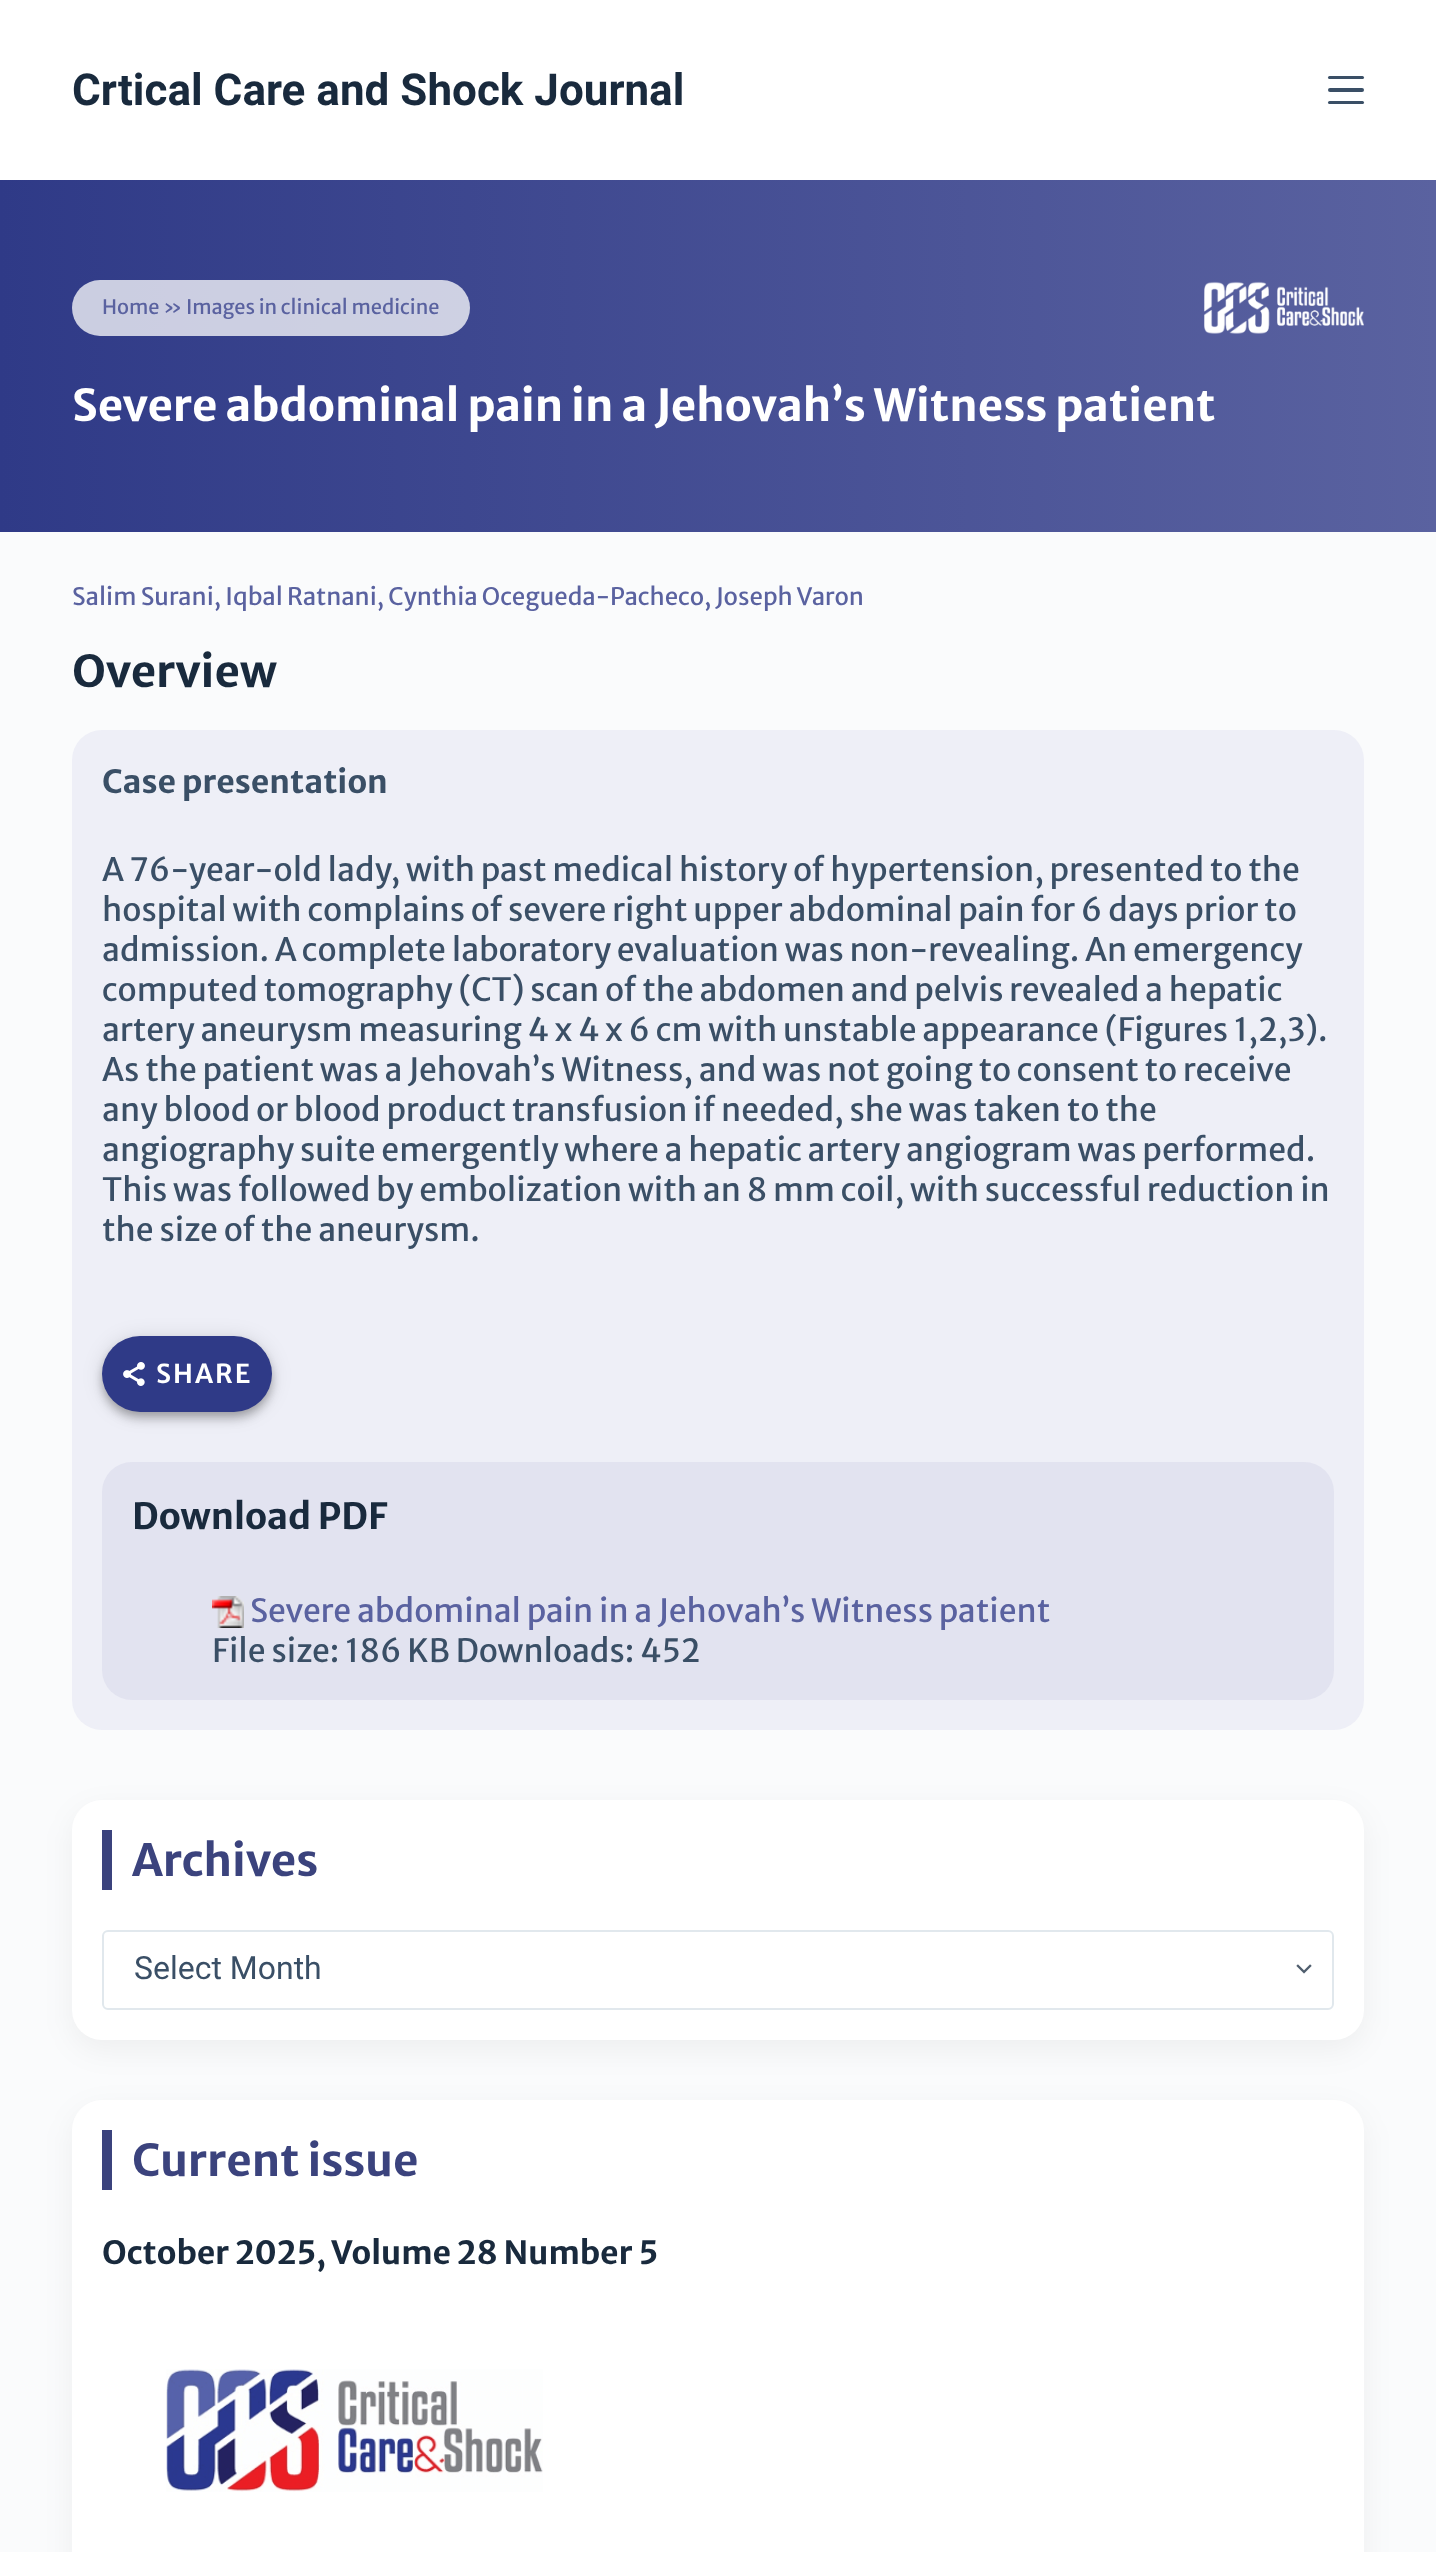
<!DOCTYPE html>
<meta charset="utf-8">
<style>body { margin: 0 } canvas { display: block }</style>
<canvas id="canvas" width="1436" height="2552"></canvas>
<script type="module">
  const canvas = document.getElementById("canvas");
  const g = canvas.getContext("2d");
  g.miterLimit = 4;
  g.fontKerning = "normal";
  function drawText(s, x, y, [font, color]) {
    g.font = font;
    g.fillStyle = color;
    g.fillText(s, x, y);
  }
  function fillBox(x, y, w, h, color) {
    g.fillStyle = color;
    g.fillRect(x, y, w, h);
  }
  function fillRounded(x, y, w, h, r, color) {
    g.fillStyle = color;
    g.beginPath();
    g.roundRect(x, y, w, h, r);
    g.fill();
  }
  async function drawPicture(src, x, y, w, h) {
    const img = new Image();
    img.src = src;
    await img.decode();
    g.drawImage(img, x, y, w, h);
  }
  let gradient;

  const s1 = ["bold 44px Roboto", "#192A3D"];
  const s2 = ["20px Merriweather Sans", "#5A62A0"];
  const s3 = ["bold 44px Merriweather Sans", "#FFFFFF"];
  const s4 = ["24px Merriweather Sans", "#5A62A0"];
  const s5 = ["bold 44px Merriweather Sans", "#192A3D"];
  const s6 = ["bold 32px Merriweather Sans", "#3A4F66"];
  const s7 = ["32px Merriweather Sans", "#3A4F66"];
  const s8 = ["600 26px Merriweather Sans", "#FFFFFF"];
  const s9 = ["bold 36px Merriweather Sans", "#192A3D"];
  const s10 = ["32px Merriweather Sans", "#5A62A0"];
  const s11 = ["bold 44px Merriweather Sans", "#3B437D"];
  const s12 = ["32px Roboto", "#3A4F66"];
  const s13 = ["bold 32px Merriweather Sans", "#192A3D"];

  fillBox(0, 0, 1436, 2552, "#FAFBFC");
  fillBox(0, 0, 1436, 180, "#FFFFFF");
  drawText("Crtical Care and Shock Journal", 72, 105, s1);
  fillRounded(1328, 76, 36, 3, 1.5, "#3A4F66");
  fillRounded(1328, 88, 36, 4, 2, "#3A4F66");
  fillRounded(1328, 101, 36, 3, 1.5, "#3A4F66");
  gradient = g.createLinearGradient(0, 356, 1436, 356);
  gradient.addColorStop(0, "#2F3A87");
  gradient.addColorStop(1, "#5A62A0");
  g.fillStyle = gradient;
  g.fillRect(0, 180, 1436, 352);
  fillRounded(72, 280, 398, 56, 28, "rgba(255, 255, 255, 0.75)");
  drawText("Home » Images in clinical medicine", 102, 314, s2);
  await drawPicture("pic1.png", 1204, 281, 160, 53);
  drawText("Severe abdominal pain in a Jehovah’s Witness patient", 72, 421, s3);
  drawText("Salim Surani, Iqbal Ratnani, Cynthia Ocegueda-Pacheco", 72, 605, s4);
  drawText(", Joseph Varon", 704, 605, s4);
  drawText("Overview", 72, 687, s5);
  fillRounded(72, 730, 1292, 1000, 30, "#EEEFF7");
  drawText("Case presentation", 102, 793, s6);
  drawText("A 76-year-old lady, with past medical history of hypertension, presented to the", 102, 881, s7);
  drawText("hospital with complains of severe right upper abdominal pain for 6 days prior to", 102, 921, s7);
  drawText("admission. A complete laboratory evaluation was non-revealing. An emergency", 102, 961, s7);
  drawText("computed tomography (CT) scan of the abdomen and pelvis revealed a hepatic", 102, 1001, s7);
  drawText("artery aneurysm measuring 4 x 4 x 6 cm with unstable appearance (Figures 1,2,3).", 102, 1041, s7);
  drawText("As the patient was a Jehovah’s Witness, and was not going to consent to receive", 102, 1081, s7);
  drawText("any blood or blood product transfusion if needed, she was taken to the", 102, 1121, s7);
  drawText("angiography suite emergently where a hepatic artery angiogram was performed.", 102, 1161, s7);
  drawText("This was followed by embolization with an 8 mm coil, with successful reduction in", 102, 1201, s7);
  drawText("the size of the aneurysm.", 102, 1241, s7);
  g.fillStyle = "rgba(0, 0, 0, 0.12)";
  g.filter = "blur(10px)";
  g.beginPath();
  g.roundRect(102, 1338, 170, 76, 38);
  g.fill();
  g.filter = "none";
  g.fillStyle = "rgba(0, 0, 0, 0.14)";
  g.filter = "blur(5px)";
  g.beginPath();
  g.roundRect(102, 1344, 170, 76, 38);
  g.fill();
  g.filter = "none";
  g.fillStyle = "rgba(0, 0, 0, 0.2)";
  g.filter = "blur(4px)";
  g.beginPath();
  g.roundRect(104, 1342, 166, 72, 36);
  g.fill();
  g.filter = "none";
  fillRounded(102, 1336, 170, 76, 38, "#2F3A87");
  await drawPicture("pic2.png", 123, 1362, 22, 24);
  g.letterSpacing = "2px";
  drawText("SHARE", 156, 1383, s8);
  fillRounded(102, 1462, 1232, 238, 30, "#E2E3F0");
  g.letterSpacing = "0px";
  drawText("Download PDF", 132, 1529, s9);
  await drawPicture("pic3.png", 212, 1596, 32, 32);
  drawText("Severe abdominal pain in a Jehovah’s Witness patient", 250, 1622, s10);
  drawText("File size: 186 KB Downloads: 452", 212, 1662, s7);
  g.fillStyle = "rgba(0, 0, 0, 0.05)";
  g.filter = "blur(15px)";
  g.beginPath();
  g.roundRect(72, 1810, 1292, 240, 30);
  g.fill();
  g.filter = "none";
  fillRounded(72, 1800, 1292, 240, 30, "#FFFFFF");
  fillBox(102, 1830, 10, 60, "#3B437D");
  drawText("Archives", 132, 1876, s11);
  await drawPicture("pic4.png", 1296, 1964, 16, 10);
  g.beginPath();
  g.roundRect(103, 1931, 1230, 78, 5);
  g.strokeStyle = "#E1E8ED";
  g.lineWidth = 2;
  g.stroke();
  drawText("Select Month", 134, 1979, s12);
  g.fillStyle = "rgba(0, 0, 0, 0.05)";
  g.filter = "blur(15px)";
  g.beginPath();
  g.roundRect(72, 2110, 1292, 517, 30);
  g.fill();
  g.filter = "none";
  fillRounded(72, 2100, 1292, 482, 30, "#FFFFFF");
  fillBox(102, 2130, 10, 60, "#3B437D");
  drawText("Current issue", 132, 2176, s11);
  drawText("October 2025, Volume 28 Number 5", 102, 2264, s13);
  await drawPicture("pic5.png", 166, 2369, 377, 123);
</script>
